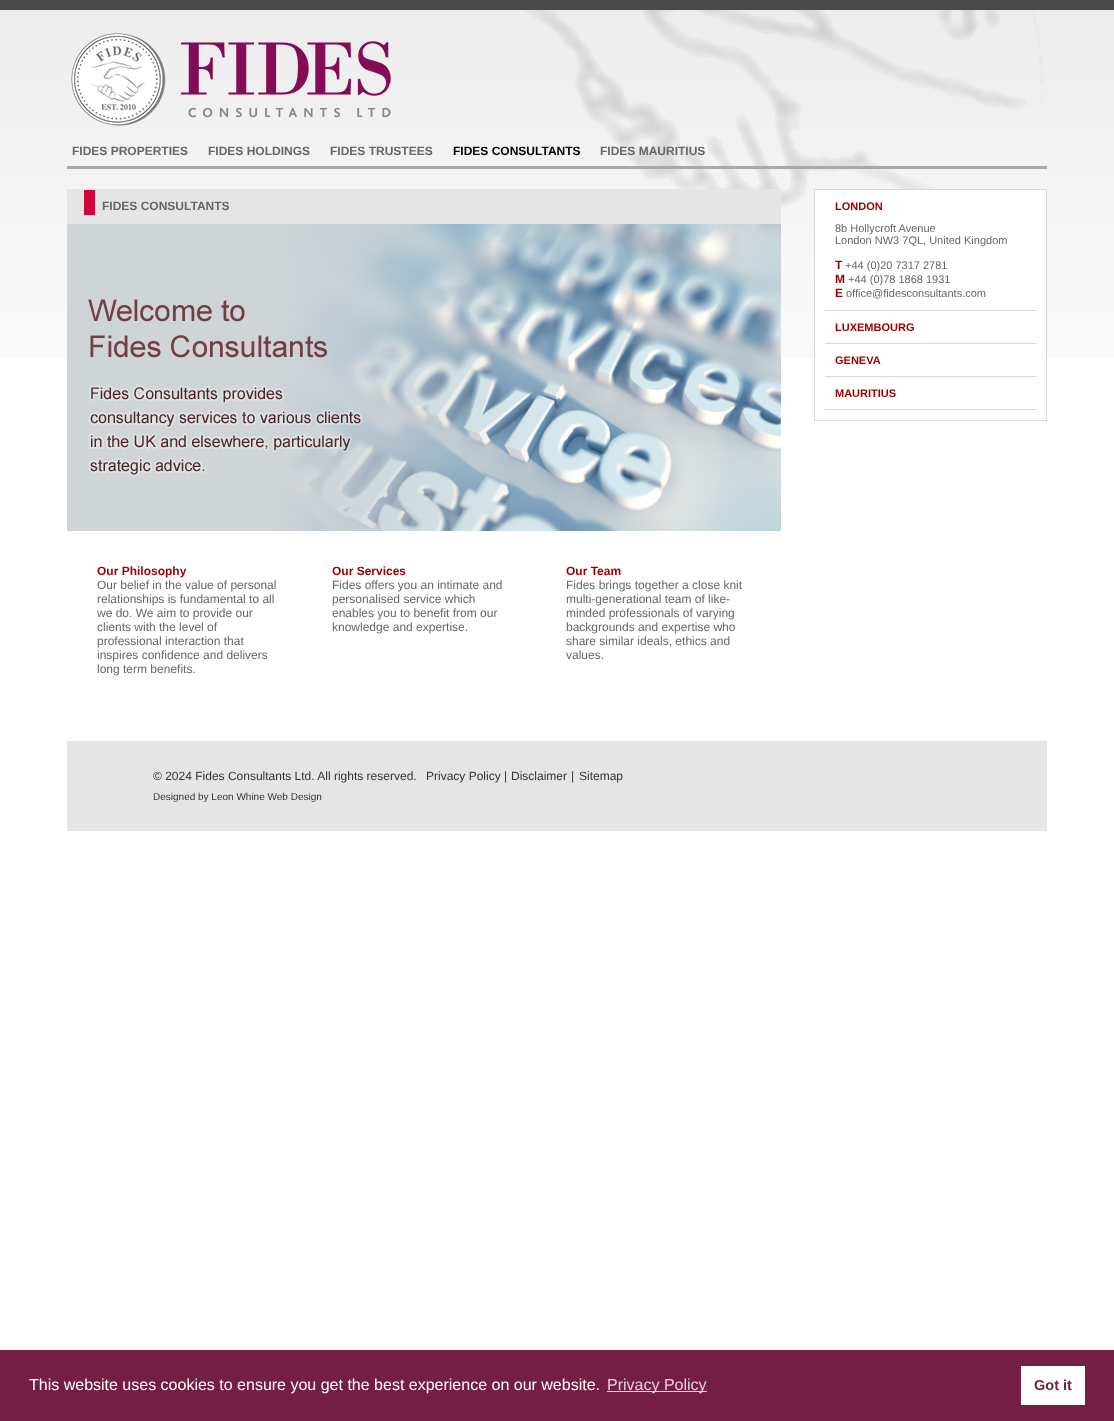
<!DOCTYPE html>
<meta charset="utf-8">
<style>body { margin: 0 } canvas { display: block }</style>
<canvas id="canvas" width="1114" height="1421"></canvas>
<script type="module">
  const canvas = document.getElementById("canvas");
  const g = canvas.getContext("2d");
  g.miterLimit = 4;
  g.fontKerning = "normal";
  function drawText(s, x, y, [font, color]) {
    g.font = font;
    g.fillStyle = color;
    g.fillText(s, x, y);
  }
  function fillBox(x, y, w, h, color) {
    g.fillStyle = color;
    g.fillRect(x, y, w, h);
  }
  async function drawPicture(src, x, y, w, h) {
    const img = new Image();
    img.src = src;
    await img.decode();
    g.drawImage(img, x, y, w, h);
  }

  const s1 = ["bold 12px Liberation Sans", "#666666"];
  const s2 = ["bold 12px Liberation Sans", "#000000"];
  const s3 = ["bold 12px Liberation Sans", "#990000"];
  const s4 = ["12px Liberation Sans", "#666666"];
  const s5 = ["bold 11px Liberation Sans", "#990000"];
  const s6 = ["11px Liberation Sans", "#666666"];
  const s7 = ["12px Liberation Sans", "#333333"];
  const s8 = ["10px Liberation Sans", "#333333"];
  const s9 = ["16px Liberation Sans", "#FFFFFF"];
  const s10 = ["16px Liberation Sans", "#E3D2D9"];
  const s11 = ["bold 14.5px Liberation Sans", "#741E43"];

  fillBox(0, 0, 1114, 1421, "#FFFFFF");
  await drawPicture("pic1.png", 0, 0, 1114, 358);
  await drawPicture("pic2.png", 71, 33, 320, 93);
  fillBox(67, 166, 980, 3, "#AAA9A9");
  drawText("FIDES PROPERTIES", 72, 155, s1);
  drawText("FIDES HOLDINGS", 208, 155, s1);
  drawText("FIDES TRUSTEES", 330, 155, s1);
  drawText("FIDES CONSULTANTS", 453, 155, s2);
  drawText("FIDES MAURITIUS", 600, 155, s1);
  fillBox(67, 189, 714, 35, "#E6E5E5");
  fillBox(84, 190, 11, 25, "#CF043B");
  drawText("FIDES CONSULTANTS", 102, 210, s1);
  await drawPicture("pic3.png", 67, 224, 714, 307);
  drawText("Our Philosophy", 97, 575, s3);
  drawText("Our belief in the value of personal", 97, 589, s4);
  drawText("relationships is fundamental to all", 97, 603, s4);
  drawText("we do. We aim to provide our", 97, 617, s4);
  drawText("clients with the level of", 97, 631, s4);
  drawText("professional interaction that", 97, 645, s4);
  drawText("inspires confidence and delivers", 97, 659, s4);
  drawText("long term benefits.", 97, 673, s4);
  drawText("Our Services", 332, 575, s3);
  drawText("Fides offers you an intimate and", 332, 589, s4);
  drawText("personalised service which", 332, 603, s4);
  drawText("enables you to benefit from our", 332, 617, s4);
  drawText("knowledge and expertise.", 332, 631, s4);
  drawText("Our Team", 566, 575, s3);
  drawText("Fides brings together a close knit", 566, 589, s4);
  drawText("multi-generational team of like-", 566, 603, s4);
  drawText("minded professionals of varying", 566, 617, s4);
  drawText("backgrounds and expertise who", 566, 631, s4);
  drawText("share similar ideals, ethics and", 566, 645, s4);
  drawText("values.", 566, 659, s4);
  fillBox(815, 190, 231, 168, "#FFFFFF");
  g.strokeStyle = "#D6D6D6";
  g.strokeRect(814.5, 189.5, 232, 231);
  fillBox(825, 310, 211, 1, "#D6D6D6");
  drawText("LONDON", 835, 210, s5);
  drawText("8b Hollycroft Avenue", 835, 232, s6);
  drawText("London NW3 7QL, United Kingdom", 835, 244, s6);
  drawText("T", 835, 269, s3);
  drawText("+44 (0)20 7317 2781", 845, 269, s6);
  drawText("M", 835, 283, s3);
  drawText("+44 (0)78 1868 1931", 848, 283, s6);
  drawText("E", 835, 297, s3);
  drawText("office@fidesconsultants.com", 846, 297, s6);
  fillBox(825, 343, 211, 1, "#D6D6D6");
  drawText("LUXEMBOURG", 835, 331, s5);
  fillBox(825, 376, 211, 1, "#D6D6D6");
  drawText("GENEVA", 835, 364, s5);
  fillBox(825, 409, 211, 1, "#D6D6D6");
  drawText("MAURITIUS", 835, 397, s5);
  fillBox(67, 741, 980, 90, "#E6E5E5");
  drawText("© 2024 Fides Consultants Ltd. All rights reserved.", 153, 780, s7);
  drawText("Privacy Policy", 426, 780, s7);
  drawText("|", 504, 780, s7);
  drawText("Disclaimer", 511, 780, s7);
  drawText("|", 571, 780, s7);
  drawText("Sitemap", 579, 780, s7);
  drawText("Designed by Leon Whine Web Design", 153, 800, s8);
  fillBox(0, 1350, 1114, 71, "#741E43");
  drawText("This website uses cookies to ensure you get the best experience on our website.", 29, 1390, s9);
  fillBox(607, 1391, 100, 1, "#E3D2D9");
  drawText("Privacy Policy", 607, 1390, s10);
  fillBox(1021, 1366, 64, 39, "#FFFFFF");
  drawText("Got it", 1034, 1390, s11);
</script>
